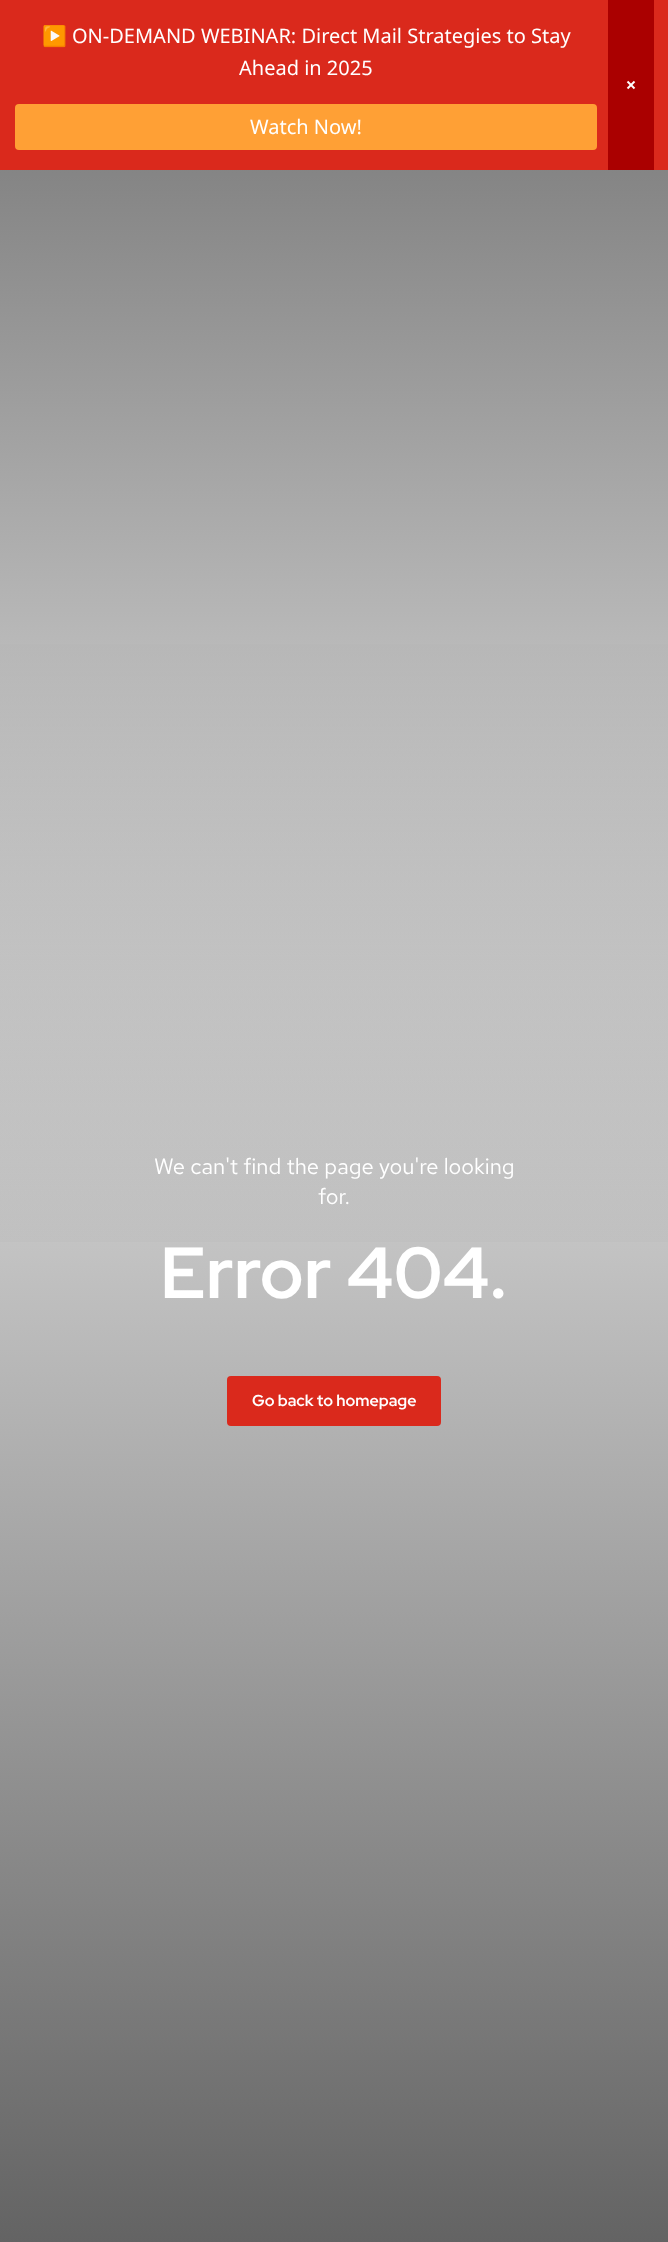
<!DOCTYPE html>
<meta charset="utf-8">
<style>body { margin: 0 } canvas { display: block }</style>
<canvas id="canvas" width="668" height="2242"></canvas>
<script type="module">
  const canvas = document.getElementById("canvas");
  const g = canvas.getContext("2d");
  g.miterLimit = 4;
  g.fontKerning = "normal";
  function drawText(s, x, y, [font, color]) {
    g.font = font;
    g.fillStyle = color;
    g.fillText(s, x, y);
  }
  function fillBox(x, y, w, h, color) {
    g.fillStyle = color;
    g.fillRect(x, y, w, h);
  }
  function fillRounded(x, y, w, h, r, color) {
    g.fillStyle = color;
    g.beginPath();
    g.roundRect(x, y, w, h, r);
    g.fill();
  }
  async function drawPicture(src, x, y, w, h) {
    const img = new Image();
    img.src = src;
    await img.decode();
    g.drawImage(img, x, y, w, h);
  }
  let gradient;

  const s1 = ["20px Noto Color Emoji", "#FFFFFF"];
  const s2 = ["20px Noto Sans", "#FFFFFF"];
  const s3 = ["22px Red Hat Text", "#FFFFFF"];
  const s4 = ["bold 72px Red Hat Display", "#FFFFFF"];
  const s5 = ["bold 16px Red Hat Display", "#FFFFFF"];

  fillBox(0, 0, 668, 2242, "#FFFFFF");
  fillBox(0, 0, 668, 170, "#DA291C");
  drawText("▶️", 42, 43, s1);
  drawText("ON-DEMAND WEBINAR: Direct Mail Strategies to Stay", 72, 43, s2);
  drawText("Ahead in 2025", 239, 75, s2);
  fillRounded(15, 104, 582, 46, 4, "#FFA035");
  drawText("Watch Now!", 250, 134, s2);
  fillBox(608, 0, 46, 170, "#AA0000");
  await drawPicture("pic1.png", 626, 80, 10, 10);
  gradient = g.createLinearGradient(334, 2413, 334, 169);
  gradient.addColorStop(0, "#535353");
  gradient.addColorStop(0.8, "#FFFFFF");
  g.fillStyle = gradient;
  g.fillRect(0, 644, 668, 1598);
  gradient = g.createLinearGradient(334, -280, 334, 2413);
  gradient.addColorStop(0, "#535353");
  gradient.addColorStop(0.58, "rgba(83, 83, 83, 0)");
  g.fillStyle = gradient;
  g.fillRect(0, 170, 668, 1072);
  drawText("We can't find the page you're looking", 154, 1174, s3);
  drawText("for.", 318, 1204, s3);
  drawText("Error 404.", 160, 1298, s4);
  fillRounded(227, 1376, 214, 50, 4, "#DA291C");
  drawText("Go back to homepage", 252, 1406, s5);
</script>
